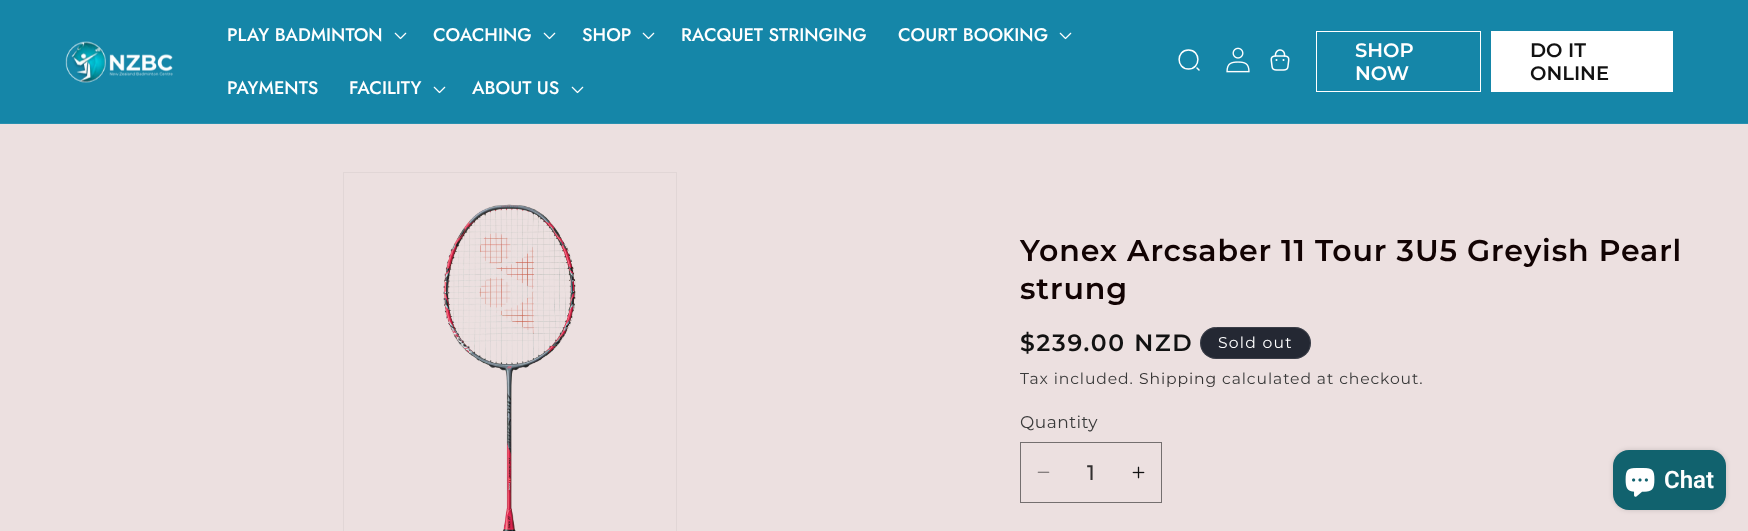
<!DOCTYPE html>
<meta charset="utf-8">
<style>body { margin: 0 } canvas { display: block }</style>
<canvas id="canvas" width="1748" height="531"></canvas>
<script type="module">
  const canvas = document.getElementById("canvas");
  const g = canvas.getContext("2d");
  g.miterLimit = 4;
  g.fontKerning = "normal";
  function drawText(s, x, y, [font, color]) {
    g.font = font;
    g.fillStyle = color;
    g.fillText(s, x, y);
  }
  function fillBox(x, y, w, h, color) {
    g.fillStyle = color;
    g.fillRect(x, y, w, h);
  }
  function fillRounded(x, y, w, h, r, color) {
    g.fillStyle = color;
    g.beginPath();
    g.roundRect(x, y, w, h, r);
    g.fill();
  }
  async function drawPicture(src, x, y, w, h) {
    const img = new Image();
    img.src = src;
    await img.decode();
    g.drawImage(img, x, y, w, h);
  }

  const s1 = ["500 18.25px Jost", "#FFFFFF"];
  const s2 = ["600 19.5px Montserrat", "#FFFFFF"];
  const s3 = ["600 19.5px Montserrat", "#121212"];
  const s4 = ["600 30px Montserrat", "#120303"];
  const s5 = ["600 23.5px Montserrat", "#121212"];
  const s6 = ["15.6px Montserrat", "#FFFFFF"];
  const s7 = ["15.6px Montserrat", "#3A3A3A"];
  const s8 = ["15.6px Montserrat", "#333131"];
  const s9 = ["17px Montserrat", "#3A3A3A"];
  const s10 = ["500 21px Montserrat", "#333131"];
  const s11 = ["600 24px Roboto", "#FFFFFF"];

  fillBox(0, 0, 1748, 531, "#ECE0E0");
  fillBox(0, 0, 1748, 123, "#1586A8");
  fillBox(0, 123, 1748, 1, "#2890AF");
  await drawPicture("pic1.png", 65, 41, 108, 42);
  drawText("PLAY BADMINTON", 227, 41, s1);
  await drawPicture("pic2.png", 394, 32, 13, 8);
  drawText("COACHING", 433, 41, s1);
  await drawPicture("pic2.png", 543, 32, 13, 8);
  drawText("SHOP", 582, 41, s1);
  await drawPicture("pic2.png", 642, 32, 13, 8);
  drawText("RACQUET STRINGING", 681, 41, s1);
  drawText("COURT BOOKING", 898, 41, s1);
  await drawPicture("pic2.png", 1059, 32, 13, 8);
  drawText("PAYMENTS", 227, 94, s1);
  drawText("FACILITY", 349, 94, s1);
  await drawPicture("pic2.png", 433, 86, 13, 8);
  drawText("ABOUT US", 472, 94, s1);
  await drawPicture("pic2.png", 571, 86, 13, 8);
  g.beginPath();
  g.moveTo(1188.5, 69);
  g.bezierCurveTo(1201, 69, 1201, 50, 1188.5, 50);
  g.bezierCurveTo(1176, 50, 1176, 69, 1188.5, 69);
  g.closePath();
  g.moveTo(1199, 70);
  g.lineTo(1197, 68);
  g.strokeStyle = "#FFFFFF";
  g.lineWidth = 1.5;
  g.lineCap = "round";
  g.lineJoin = "round";
  g.stroke();
  await drawPicture("pic3.png", 1226, 47, 24, 26);
  await drawPicture("pic4.png", 1270, 49, 20, 22);
  g.lineWidth = 1;
  g.lineJoin = "miter";
  g.strokeRect(1316.5, 31.5, 164, 60);
  drawText("SHOP", 1355, 57, s2);
  drawText("NOW", 1355, 80, s2);
  fillBox(1491, 31, 182, 61, "#FFFFFF");
  drawText("DO IT", 1530, 57, s3);
  drawText("ONLINE", 1530, 80, s3);
  g.strokeStyle = "#E1D6D6";
  g.strokeRect(343.5, 172.5, 333, 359);
  await drawPicture("pic5.png", 443, 204, 133, 327);
  g.letterSpacing = "0.9px";
  drawText("Yonex Arcsaber 11 Tour 3U5 Greyish Pearl", 1020, 261, s4);
  drawText("strung", 1020, 299, s4);
  g.letterSpacing = "1.75px";
  drawText("$239.00 NZD", 1020, 351, s5);
  fillRounded(1200, 327, 111, 32, 16, "#242833");
  g.beginPath();
  g.roundRect(1200.5, 327.5, 110, 31, 15.5);
  g.strokeStyle = "rgba(255, 255, 255, 0.1)";
  g.stroke();
  g.letterSpacing = "1.25px";
  drawText("Sold out", 1218, 348, s6);
  g.letterSpacing = "0.9px";
  drawText("Tax included.", 1020, 384, s7);
  drawText("Shipping", 1139, 384, s8);
  drawText("calculated at checkout.", 1222, 384, s7);
  g.letterSpacing = "0.5px";
  drawText("Quantity", 1020, 428, s9);
  await drawPicture("pic6.png", 1037, 471, 13, 2);
  await drawPicture("pic7.png", 1132, 466, 13, 13);
  g.strokeStyle = "#746F6F";
  g.strokeRect(1020.5, 442.5, 141, 60);
  g.letterSpacing = "0px";
  drawText("1", 1087, 480, s10);
  g.fillStyle = "rgba(0, 0, 0, 0.15)";
  g.filter = "blur(2.5px)";
  g.beginPath();
  g.roundRect(1613, 450, 113, 60, 16);
  g.fill();
  g.filter = "none";
  fillRounded(1613, 450, 113, 60, 16, "#11626E");
  await drawPicture("pic8.png", 1625, 468, 30, 29);
  drawText("Chat", 1664, 488, s11);
</script>
